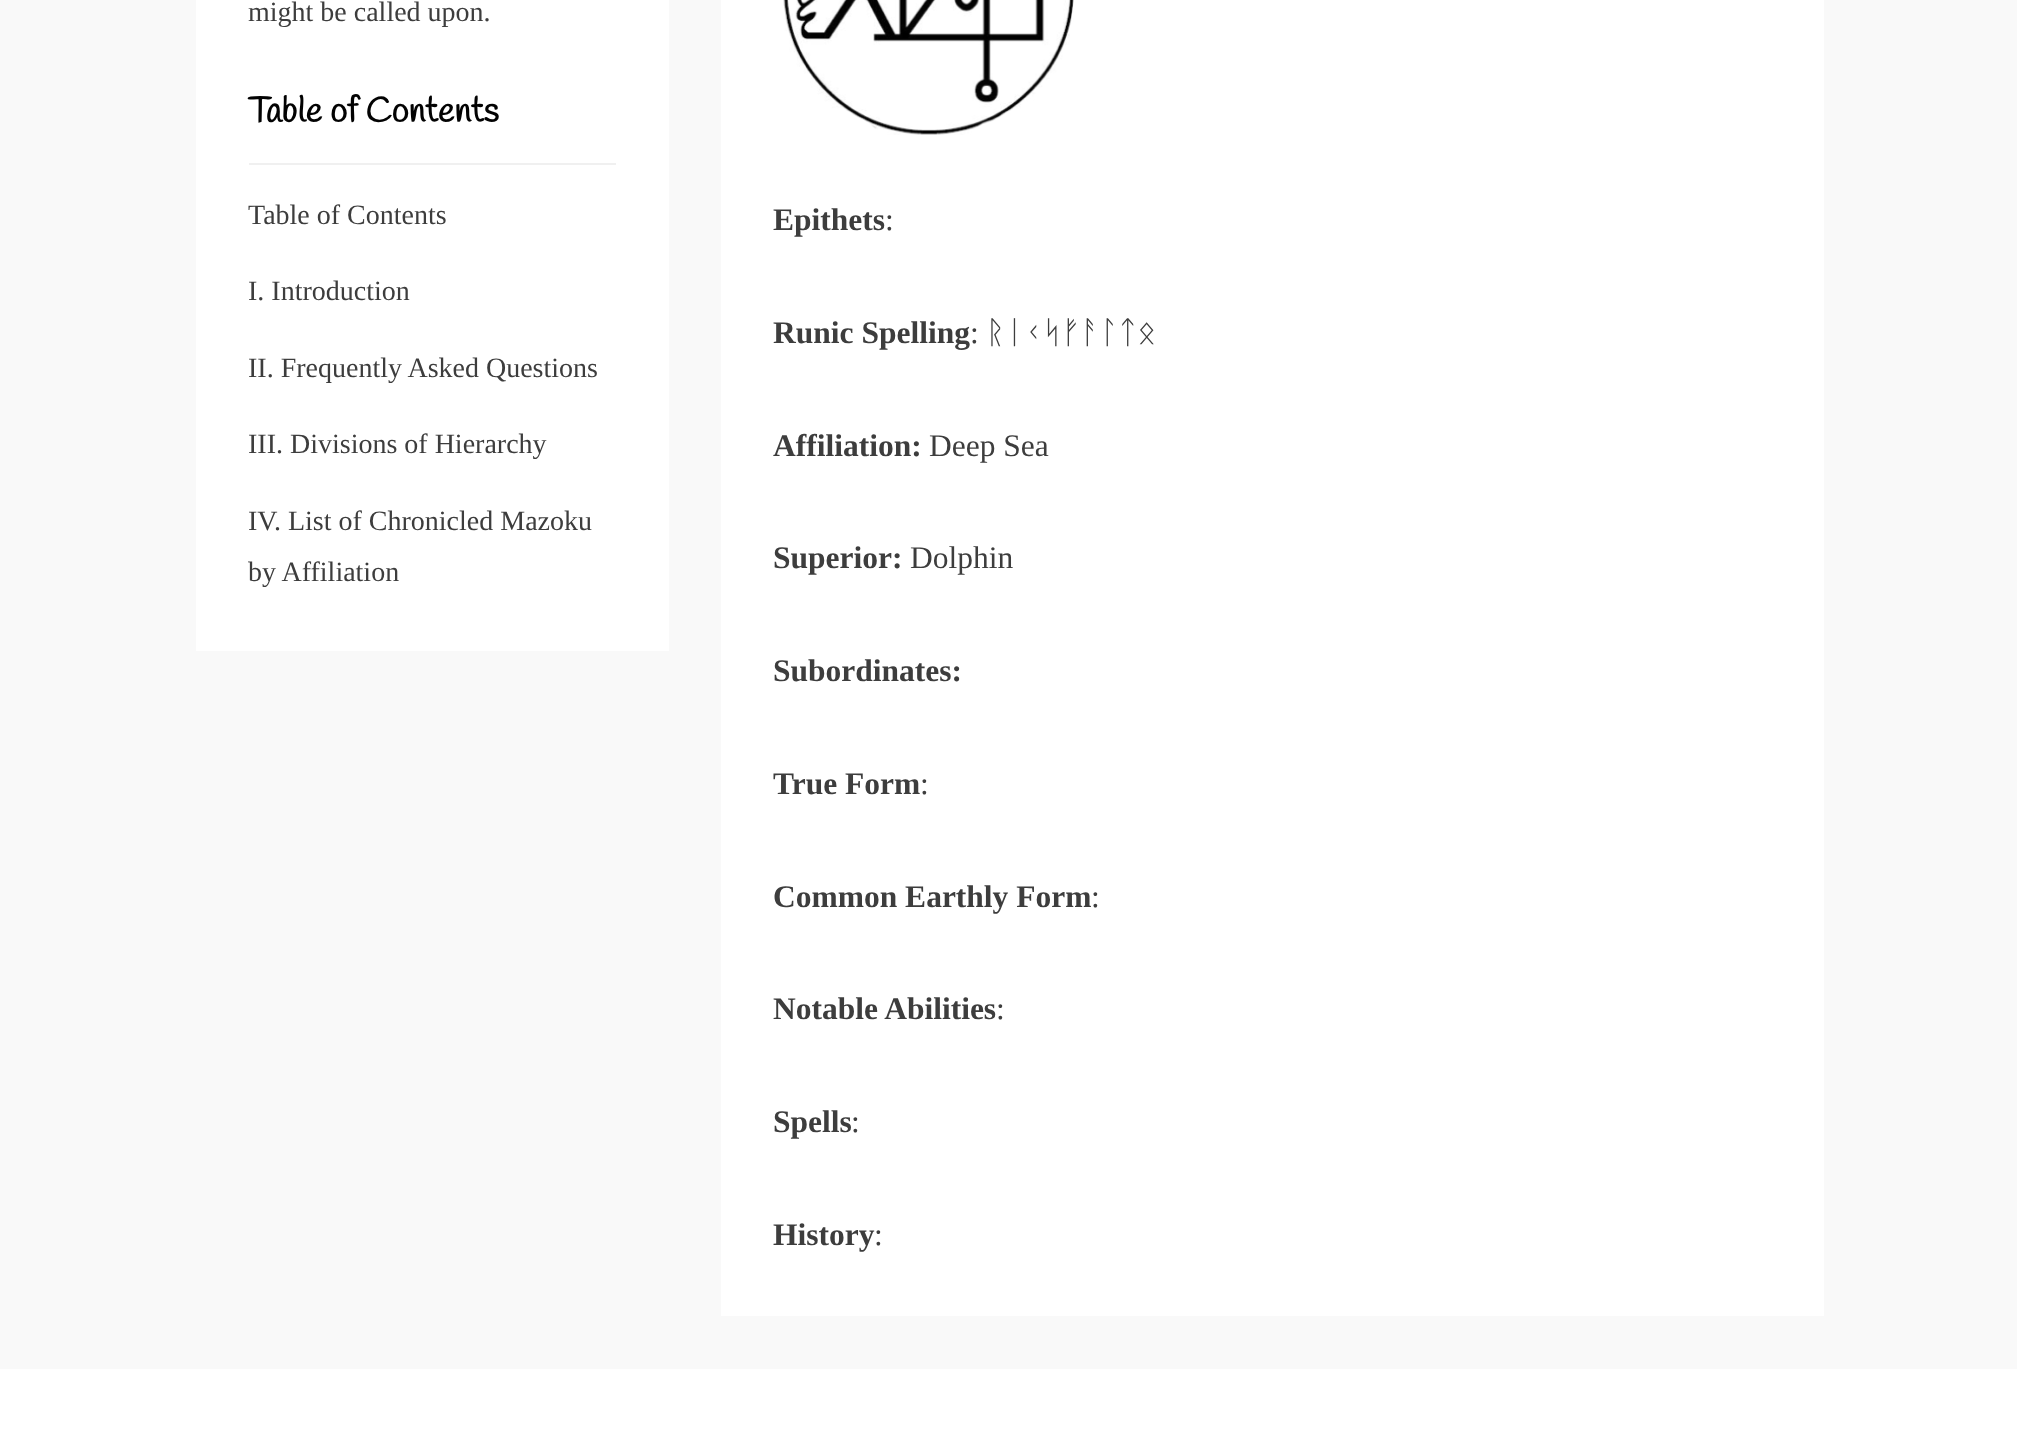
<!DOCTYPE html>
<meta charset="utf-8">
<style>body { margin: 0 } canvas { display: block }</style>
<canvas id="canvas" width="2017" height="1444"></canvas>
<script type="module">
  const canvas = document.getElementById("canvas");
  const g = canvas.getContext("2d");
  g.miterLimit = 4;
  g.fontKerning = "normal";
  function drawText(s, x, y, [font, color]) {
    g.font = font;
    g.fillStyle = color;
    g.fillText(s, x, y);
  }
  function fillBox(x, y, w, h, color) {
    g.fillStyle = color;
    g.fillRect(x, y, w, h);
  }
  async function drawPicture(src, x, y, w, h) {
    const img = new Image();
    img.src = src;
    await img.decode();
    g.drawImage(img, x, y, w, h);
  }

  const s1 = ["28px Liberation Serif", "#3D3D3D"];
  const s2 = ["bold 35px Handlee", "#020202"];
  const s3 = ["bold 31.5px Liberation Serif", "#3D3D3D"];
  const s4 = ["31.5px Liberation Serif", "#3D3D3D"];
  const s5 = ["31.5px FreeMono", "#3D3D3D"];

  fillBox(0, 0, 2017, 1444, "#F9F9F9");
  fillBox(196, 0, 473, 651, "#FFFFFF");
  drawText("might be called upon.", 248, 21, s1);
  fillBox(249, 163, 367, 2, "#F0F0F0");
  drawText("Table of Contents", 248, 122, s2);
  drawText("Table of Contents", 248, 224, s1);
  drawText("I. Introduction", 248, 300, s1);
  drawText("II. Frequently Asked Questions", 248, 377, s1);
  drawText("III. Divisions of Hierarchy", 248, 453, s1);
  drawText("IV. List of Chronicled Mazoku", 248, 530, s1);
  drawText("by Affiliation", 248, 581, s1);
  fillBox(721, 0, 1103, 1316, "#FFFFFF");
  await drawPicture("pic1.png", 783, 0, 291, 135);
  drawText("Epithets", 773, 230, s3);
  drawText(":", 885, 230, s4);
  drawText("Runic Spelling", 773, 343, s3);
  drawText(":", 970, 343, s4);
  drawText("ᚱᛁᚲᛋᚠᚨᛚᛏᛟ", 986, 343, s5);
  drawText("Affiliation:", 773, 456, s3);
  drawText("Deep Sea", 929, 456, s4);
  drawText("Superior:", 773, 568, s3);
  drawText("Dolphin", 910, 568, s4);
  drawText("Subordinates:", 773, 681, s3);
  drawText("True Form", 773, 794, s3);
  drawText(":", 920, 794, s4);
  drawText("Common Earthly Form", 773, 907, s3);
  drawText(":", 1091, 907, s4);
  drawText("Notable Abilities", 773, 1019, s3);
  drawText(":", 996, 1019, s4);
  drawText("Spells", 773, 1132, s3);
  drawText(":", 851, 1132, s4);
  drawText("History", 773, 1245, s3);
  drawText(":", 874, 1245, s4);
  fillBox(0, 1369, 2017, 75, "#FFFFFF");
</script>
